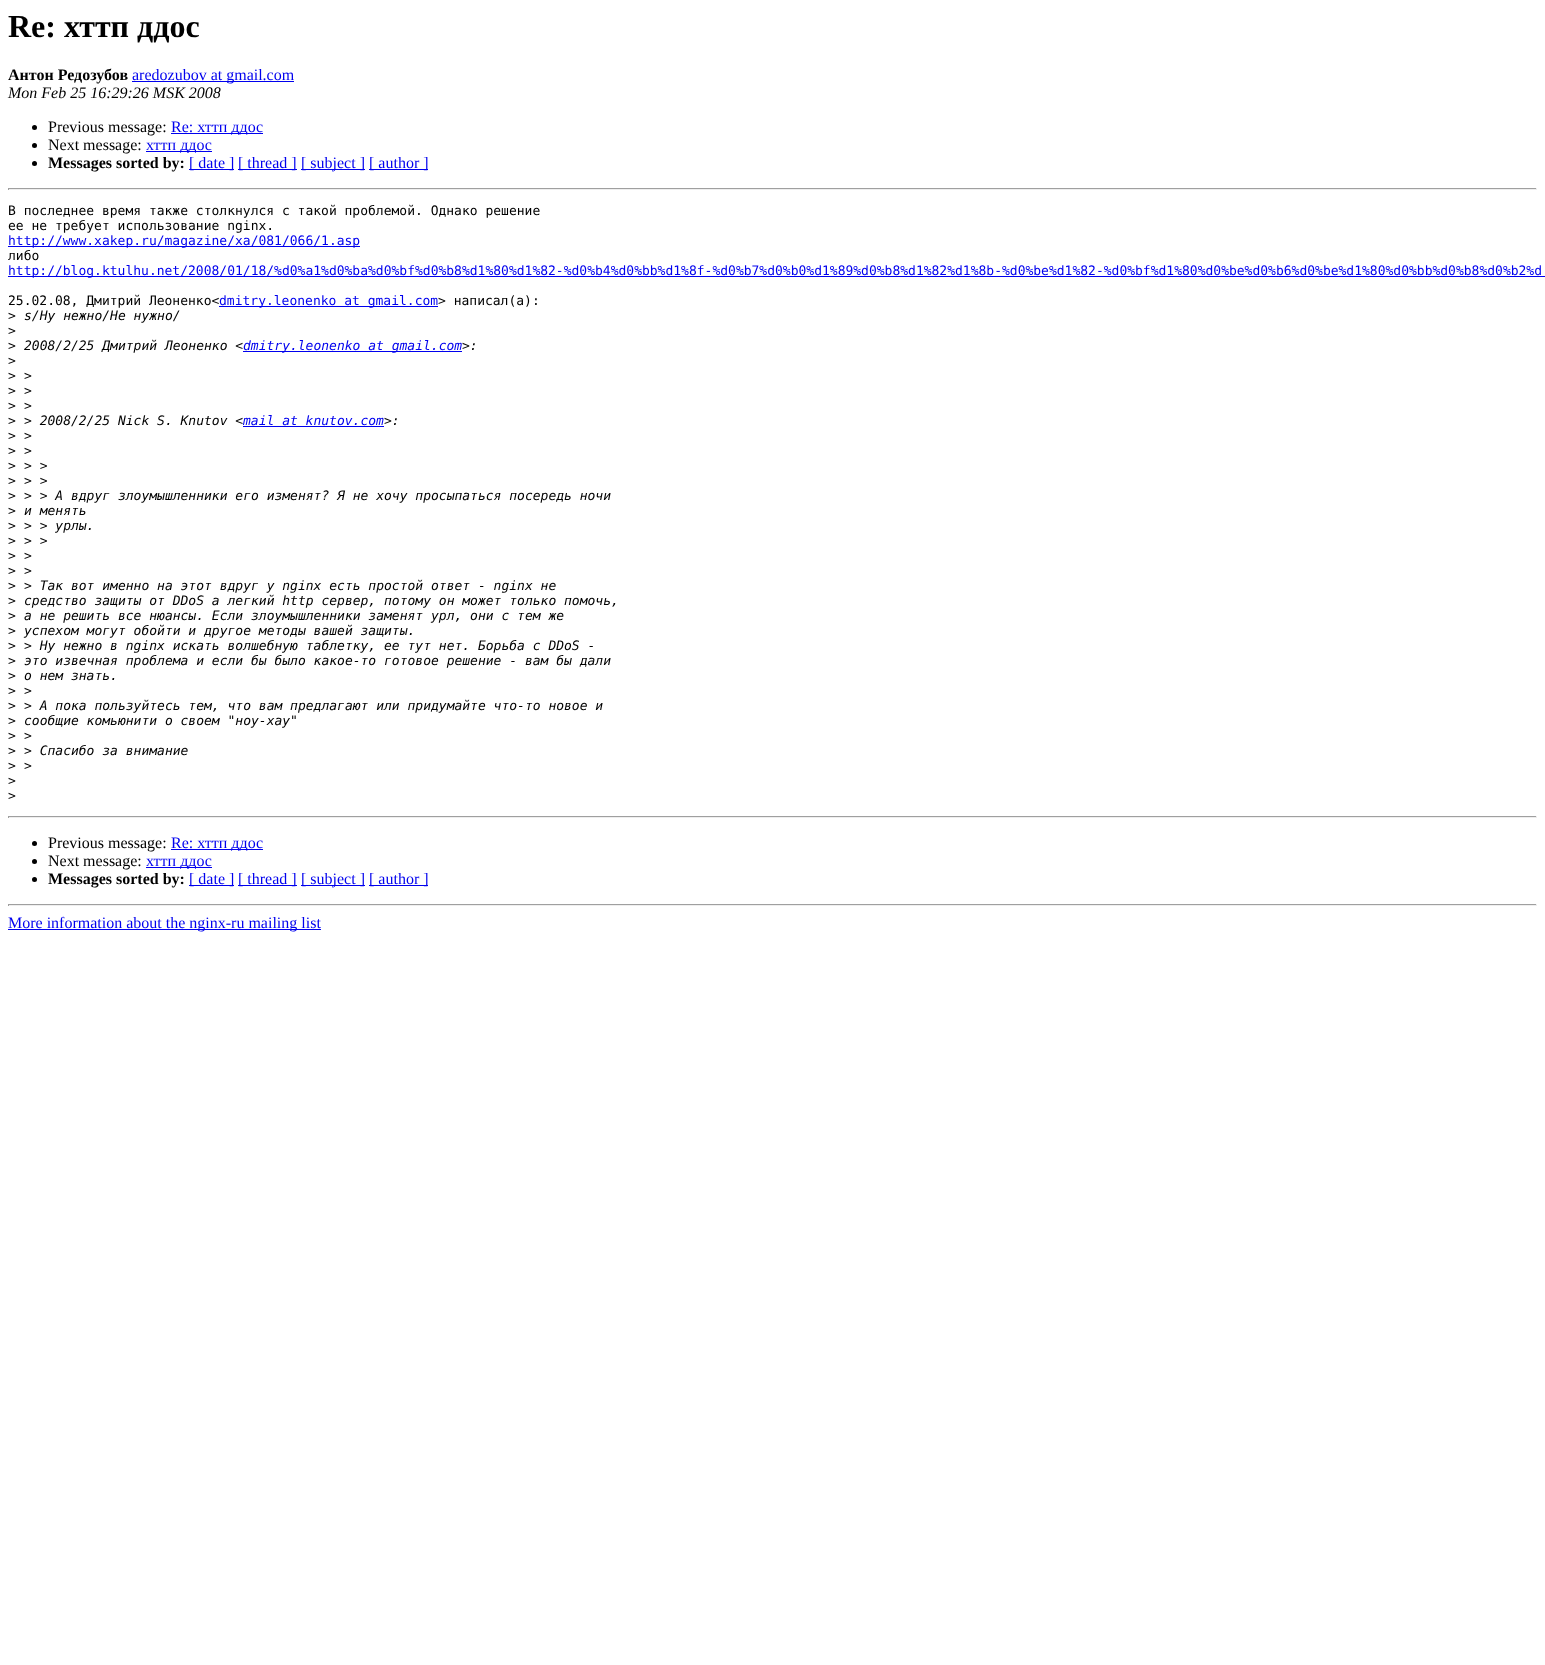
<!DOCTYPE html>
<meta charset="utf-8">
<style>body { margin: 0 } canvas { display: block }</style>
<canvas id="canvas" width="1545" height="1665"></canvas>
<script type="module">
  const canvas = document.getElementById("canvas");
  const g = canvas.getContext("2d");
  g.miterLimit = 4;
  g.fontKerning = "normal";
  function drawText(s, x, y, [font, color]) {
    g.font = font;
    g.fillStyle = color;
    g.fillText(s, x, y);
  }
  function fillBox(x, y, w, h, color) {
    g.fillStyle = color;
    g.fillRect(x, y, w, h);
  }

  const s1 = ["bold 32px Liberation Serif", "#000000"];
  const s2 = ["bold 16px Liberation Serif", "#000000"];
  const s3 = ["16px Liberation Serif", "#0000EE"];
  const s4 = ["italic 16px Liberation Serif", "#000000"];
  const s5 = ["16px Liberation Serif", "#000000"];
  const s6 = ["13px DejaVu Sans Mono", "#000000"];
  const s7 = ["13px DejaVu Sans Mono", "#0000EE"];
  const s8 = ["italic 13px DejaVu Sans Mono", "#000000"];
  const s9 = ["italic 13px DejaVu Sans Mono", "#0000EE"];

  fillBox(0, 0, 1545, 1665, "#FFFFFF");
  drawText("Re: хттп ддос", 8, 37, s1);
  drawText("Антон Редозубов", 8, 80, s2);
  fillBox(132, 81, 162, 1, "#0000EE");
  drawText("aredozubov at gmail.com", 132, 80, s3);
  drawText("Mon Feb 25 16:29:26 MSK 2008", 8, 98, s4);
  g.beginPath();
  g.arc(34.5, 127.5, 2.5, 0, Math.PI * 2);
  g.fill();
  drawText("Previous message:", 48, 132, s5);
  fillBox(171, 133, 92, 1, "#0000EE");
  drawText("Re: хттп ддос", 171, 132, s3);
  g.fillStyle = "#000000";
  g.beginPath();
  g.arc(34.5, 145.5, 2.5, 0, Math.PI * 2);
  g.fill();
  drawText("Next message:", 48, 150, s5);
  fillBox(146, 151, 66, 1, "#0000EE");
  drawText("хттп ддос", 146, 150, s3);
  g.fillStyle = "#000000";
  g.beginPath();
  g.arc(34.5, 163.5, 2.5, 0, Math.PI * 2);
  g.fill();
  drawText("Messages sorted by:", 48, 168, s2);
  fillBox(189, 169, 45, 1, "#0000EE");
  drawText("[ date ]", 189, 168, s3);
  fillBox(238, 169, 59, 1, "#0000EE");
  drawText("[ thread ]", 238, 168, s3);
  fillBox(301, 169, 64, 1, "#0000EE");
  drawText("[ subject ]", 301, 168, s3);
  fillBox(369, 169, 59, 1, "#0000EE");
  drawText("[ author ]", 369, 168, s3);
  fillBox(8, 188, 1529, 1, "#9F9F9F");
  fillBox(1536, 188, 1, 2, "#EEEEEE");
  fillBox(8, 189, 1529, 1, "#EEEEEE");
  fillBox(8, 188, 1, 2, "#9F9F9F");
  drawText("В последнее время также столкнулся с такой проблемой. Однако решение", 8, 215, s6);
  drawText("ее не требует использование nginx.", 8, 230, s6);
  fillBox(8, 246, 352, 1, "#0000EE");
  drawText("http://www.xakep.ru/magazine/xa/081/066/1.asp", 8, 245, s7);
  drawText("либо", 8, 260, s6);
  fillBox(8, 276, 1537, 1, "#0000EE");
  drawText("http://blog.ktulhu.net/2008/01/18/%d0%a1%d0%ba%d0%bf%d0%b8%d1%80%d1%82-%d0%b4%d0%bb%d1%8f-%d0%b7%d0%b0%d1%89%d0%b8%d1%82%d1%8b-%d0%be%d1%82-%d0%bf%d1%80%d0%be%d0%b6%d0%be%d1%80%d0%bb%d0%b8%d0%b2%d", 8, 275, s7);
  drawText("25.02.08, Дмитрий Леоненко<", 8, 305, s6);
  fillBox(219, 306, 219, 1, "#0000EE");
  drawText("dmitry.leonenko at gmail.com", 219, 305, s7);
  drawText("> написал(а):", 438, 305, s6);
  drawText(">", 8, 320, s6);
  drawText("s/Ну нежно/Не нужно/", 24, 320, s8);
  drawText(">", 8, 335, s6);
  drawText(">", 8, 350, s6);
  drawText("2008/2/25 Дмитрий Леоненко <", 24, 350, s8);
  fillBox(243, 351, 219, 1, "#0000EE");
  drawText("dmitry.leonenko at gmail.com", 243, 350, s9);
  drawText(">:", 462, 350, s8);
  drawText(">", 8, 365, s6);
  drawText(">", 8, 380, s6);
  drawText(">", 24, 380, s8);
  drawText(">", 8, 395, s6);
  drawText(">", 24, 395, s8);
  drawText(">", 8, 410, s6);
  drawText(">", 24, 410, s8);
  drawText(">", 8, 425, s6);
  drawText("> 2008/2/25 Nick S. Knutov <", 24, 425, s8);
  fillBox(243, 426, 141, 1, "#0000EE");
  drawText("mail at knutov.com", 243, 425, s9);
  drawText(">:", 384, 425, s8);
  drawText(">", 8, 440, s6);
  drawText(">", 24, 440, s8);
  drawText(">", 8, 455, s6);
  drawText(">", 24, 455, s8);
  drawText(">", 8, 470, s6);
  drawText("> >", 24, 470, s8);
  drawText(">", 8, 485, s6);
  drawText("> >", 24, 485, s8);
  drawText(">", 8, 500, s6);
  drawText("> > А вдруг злоумышленники его изменят? Я не хочу просыпаться посередь ночи", 24, 500, s8);
  drawText(">", 8, 515, s6);
  drawText("и менять", 24, 515, s8);
  drawText(">", 8, 530, s6);
  drawText("> > урлы.", 24, 530, s8);
  drawText(">", 8, 545, s6);
  drawText("> >", 24, 545, s8);
  drawText(">", 8, 560, s6);
  drawText(">", 24, 560, s8);
  drawText(">", 8, 575, s6);
  drawText(">", 24, 575, s8);
  drawText(">", 8, 590, s6);
  drawText("> Так вот именно на этот вдруг у nginx есть простой ответ - nginx не", 24, 590, s8);
  drawText(">", 8, 605, s6);
  drawText("средство защиты от DDoS а легкий http сервер, потому он может только помочь,", 24, 605, s8);
  drawText(">", 8, 620, s6);
  drawText("а не решить все нюансы. Если злоумышленники заменят урл, они с тем же", 24, 620, s8);
  drawText(">", 8, 635, s6);
  drawText("успехом могут обойти и другое методы вашей защиты.", 24, 635, s8);
  drawText(">", 8, 650, s6);
  drawText("> Ну нежно в nginx искать волшебную таблетку, ее тут нет. Борьба с DDoS -", 24, 650, s8);
  drawText(">", 8, 665, s6);
  drawText("это извечная проблема и если бы было какое-то готовое решение - вам бы дали", 24, 665, s8);
  drawText(">", 8, 680, s6);
  drawText("о нем знать.", 24, 680, s8);
  drawText(">", 8, 695, s6);
  drawText(">", 24, 695, s8);
  drawText(">", 8, 710, s6);
  drawText("> А пока пользуйтесь тем, что вам предлагают или придумайте что-то новое и", 24, 710, s8);
  drawText(">", 8, 725, s6);
  drawText("сообщие комьюнити о своем \"ноу-хау\"", 24, 725, s8);
  drawText(">", 8, 740, s6);
  drawText(">", 24, 740, s8);
  drawText(">", 8, 755, s6);
  drawText("> Спасибо за внимание", 24, 755, s8);
  drawText(">", 8, 770, s6);
  drawText(">", 24, 770, s8);
  drawText(">", 8, 785, s6);
  drawText(">", 8, 800, s6);
  fillBox(8, 816, 1529, 1, "#9F9F9F");
  fillBox(1536, 816, 1, 2, "#EEEEEE");
  fillBox(8, 817, 1529, 1, "#EEEEEE");
  fillBox(8, 816, 1, 2, "#9F9F9F");
  g.fillStyle = "#000000";
  g.beginPath();
  g.arc(34.5, 843.5, 2.5, 0, Math.PI * 2);
  g.fill();
  drawText("Previous message:", 48, 848, s5);
  fillBox(171, 849, 92, 1, "#0000EE");
  drawText("Re: хттп ддос", 171, 848, s3);
  g.fillStyle = "#000000";
  g.beginPath();
  g.arc(34.5, 861.5, 2.5, 0, Math.PI * 2);
  g.fill();
  drawText("Next message:", 48, 866, s5);
  fillBox(146, 867, 66, 1, "#0000EE");
  drawText("хттп ддос", 146, 866, s3);
  g.fillStyle = "#000000";
  g.beginPath();
  g.arc(34.5, 879.5, 2.5, 0, Math.PI * 2);
  g.fill();
  drawText("Messages sorted by:", 48, 884, s2);
  fillBox(189, 885, 45, 1, "#0000EE");
  drawText("[ date ]", 189, 884, s3);
  fillBox(238, 885, 59, 1, "#0000EE");
  drawText("[ thread ]", 238, 884, s3);
  fillBox(301, 885, 64, 1, "#0000EE");
  drawText("[ subject ]", 301, 884, s3);
  fillBox(369, 885, 59, 1, "#0000EE");
  drawText("[ author ]", 369, 884, s3);
  fillBox(8, 904, 1529, 1, "#9F9F9F");
  fillBox(1536, 904, 1, 2, "#EEEEEE");
  fillBox(8, 905, 1529, 1, "#EEEEEE");
  fillBox(8, 904, 1, 2, "#9F9F9F");
  fillBox(8, 929, 313, 1, "#0000EE");
  drawText("More information about the nginx-ru mailing list", 8, 928, s3);
</script>
